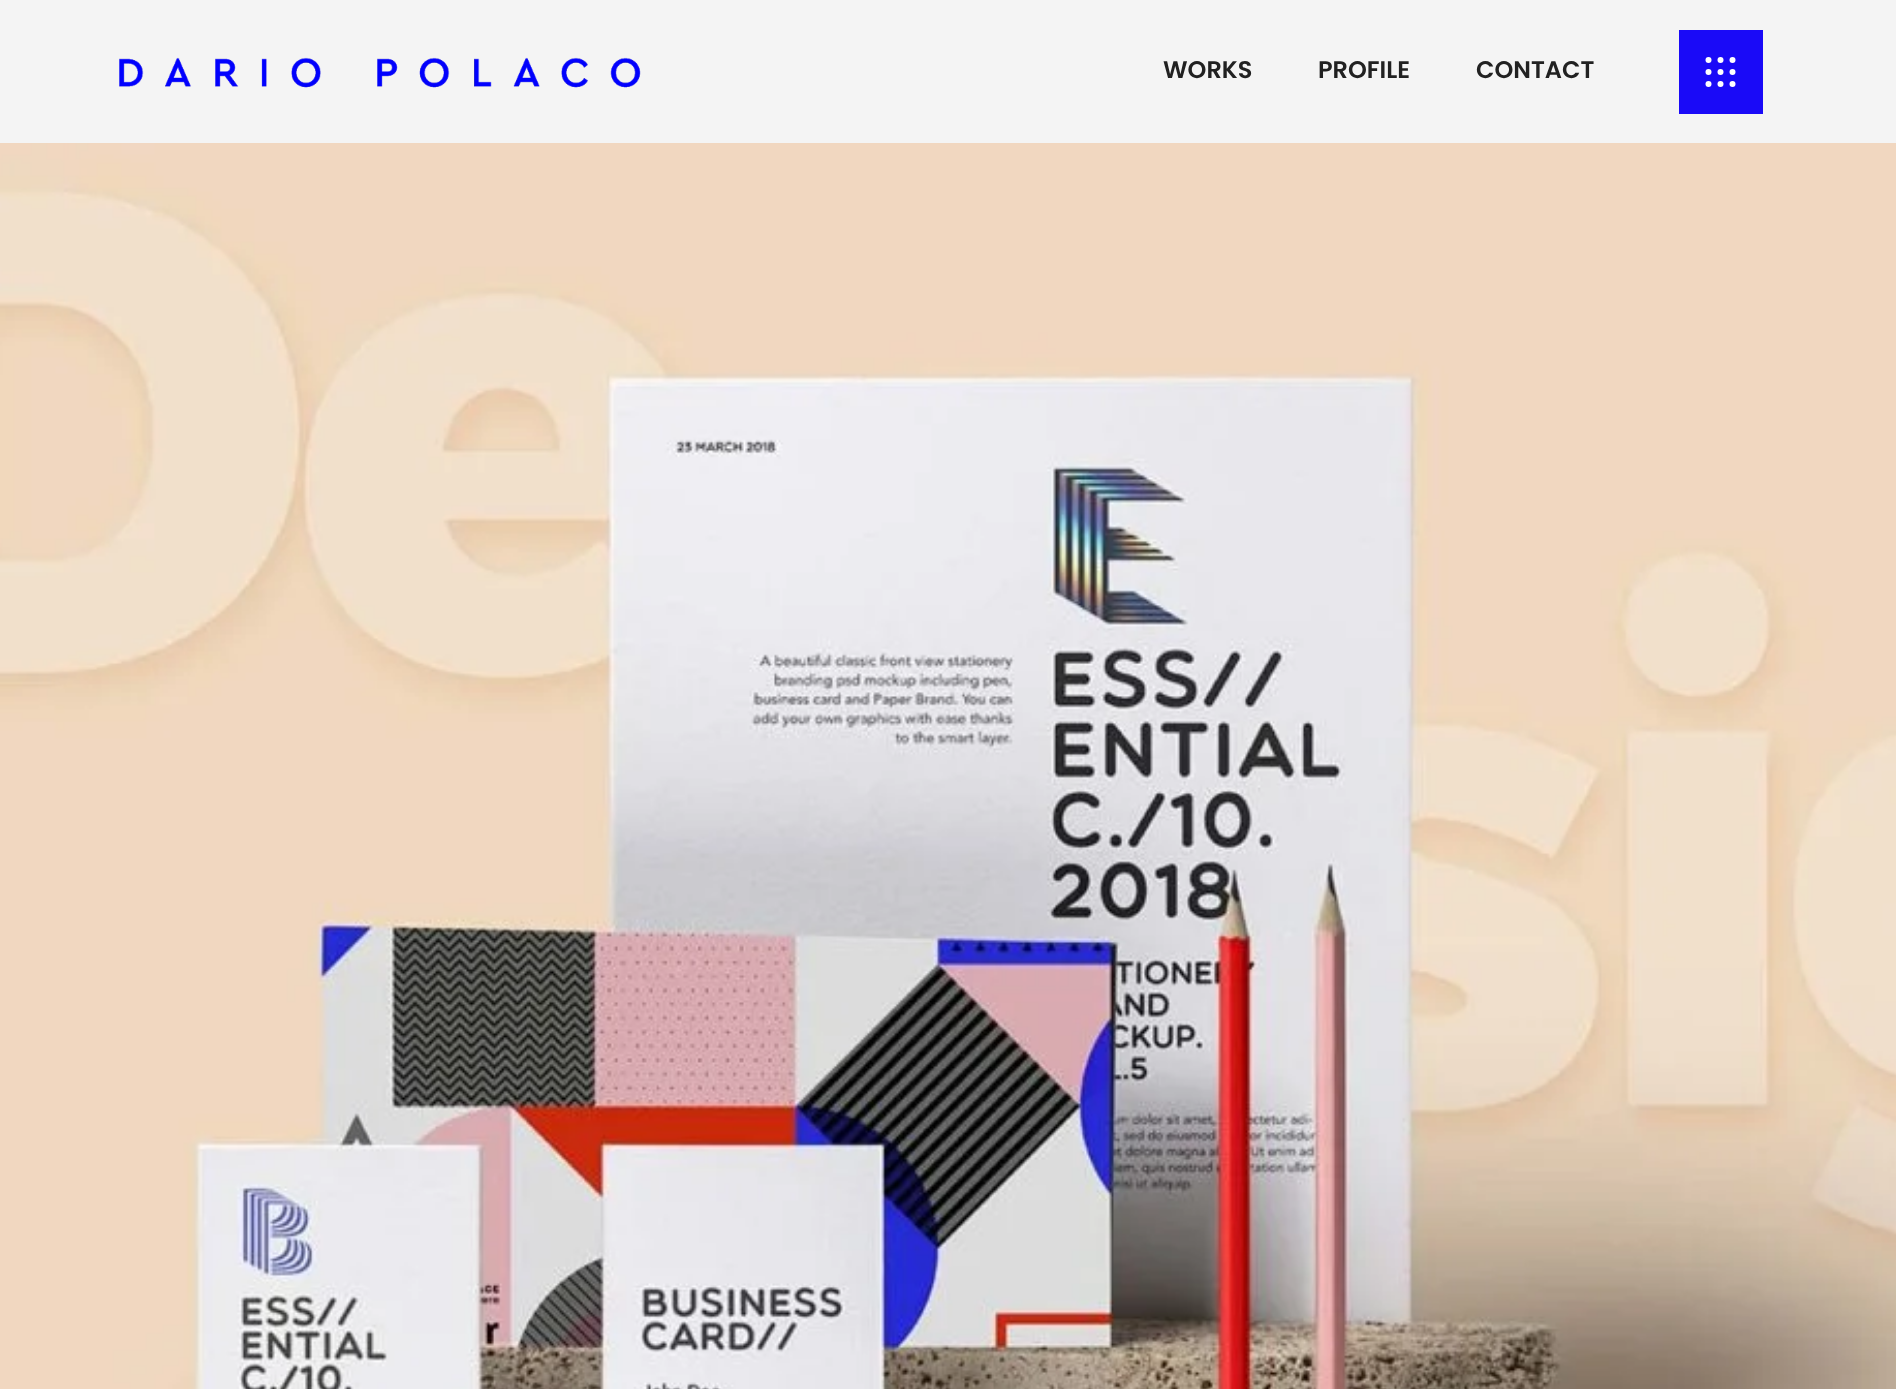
<!DOCTYPE html>
<meta charset="utf-8">
<style>body { margin: 0 } canvas { display: block }</style>
<canvas id="canvas" width="1896" height="1389"></canvas>
<script type="module">
  const canvas = document.getElementById("canvas");
  const g = canvas.getContext("2d");
  g.miterLimit = 4;
  g.fontKerning = "normal";
  function drawText(s, x, y, [font, color]) {
    g.font = font;
    g.fillStyle = color;
    g.fillText(s, x, y);
  }
  function fillBox(x, y, w, h, color) {
    g.fillStyle = color;
    g.fillRect(x, y, w, h);
  }
  async function drawPicture(src, x, y, w, h) {
    const img = new Image();
    img.src = src;
    await img.decode();
    g.drawImage(img, x, y, w, h);
  }

  const s1 = ["600 24px Poppins", "#212121"];

  fillBox(0, 0, 1896, 1389, "#FFFFFF");
  fillBox(0, 0, 1896, 143, "#F4F4F4");
  await drawPicture("pic1.png", 119, 57, 522, 31);
  drawText("WORKS", 1163, 78, s1);
  drawText("PROFILE", 1318, 78, s1);
  drawText("CONTACT", 1476, 78, s1);
  fillBox(1679, 30, 84, 84, "#1A0AF7");
  g.fillStyle = "#FFFFFF";
  g.beginPath();
  g.arc(1708.5, 60, 3, 0, Math.PI * 2);
  g.fill();
  g.beginPath();
  g.arc(1720.5, 60, 3, 0, Math.PI * 2);
  g.fill();
  g.beginPath();
  g.arc(1732.5, 60, 3, 0, Math.PI * 2);
  g.fill();
  g.beginPath();
  g.arc(1708.5, 72, 3, 0, Math.PI * 2);
  g.fill();
  g.beginPath();
  g.arc(1720.5, 72, 3, 0, Math.PI * 2);
  g.fill();
  g.beginPath();
  g.arc(1732.5, 72, 3, 0, Math.PI * 2);
  g.fill();
  g.beginPath();
  g.arc(1708.5, 84, 3, 0, Math.PI * 2);
  g.fill();
  g.beginPath();
  g.arc(1720.5, 84, 3, 0, Math.PI * 2);
  g.fill();
  g.beginPath();
  g.arc(1732.5, 84, 3, 0, Math.PI * 2);
  g.fill();
  await drawPicture("pic2.png", 0, 143, 1896, 1246);
</script>
